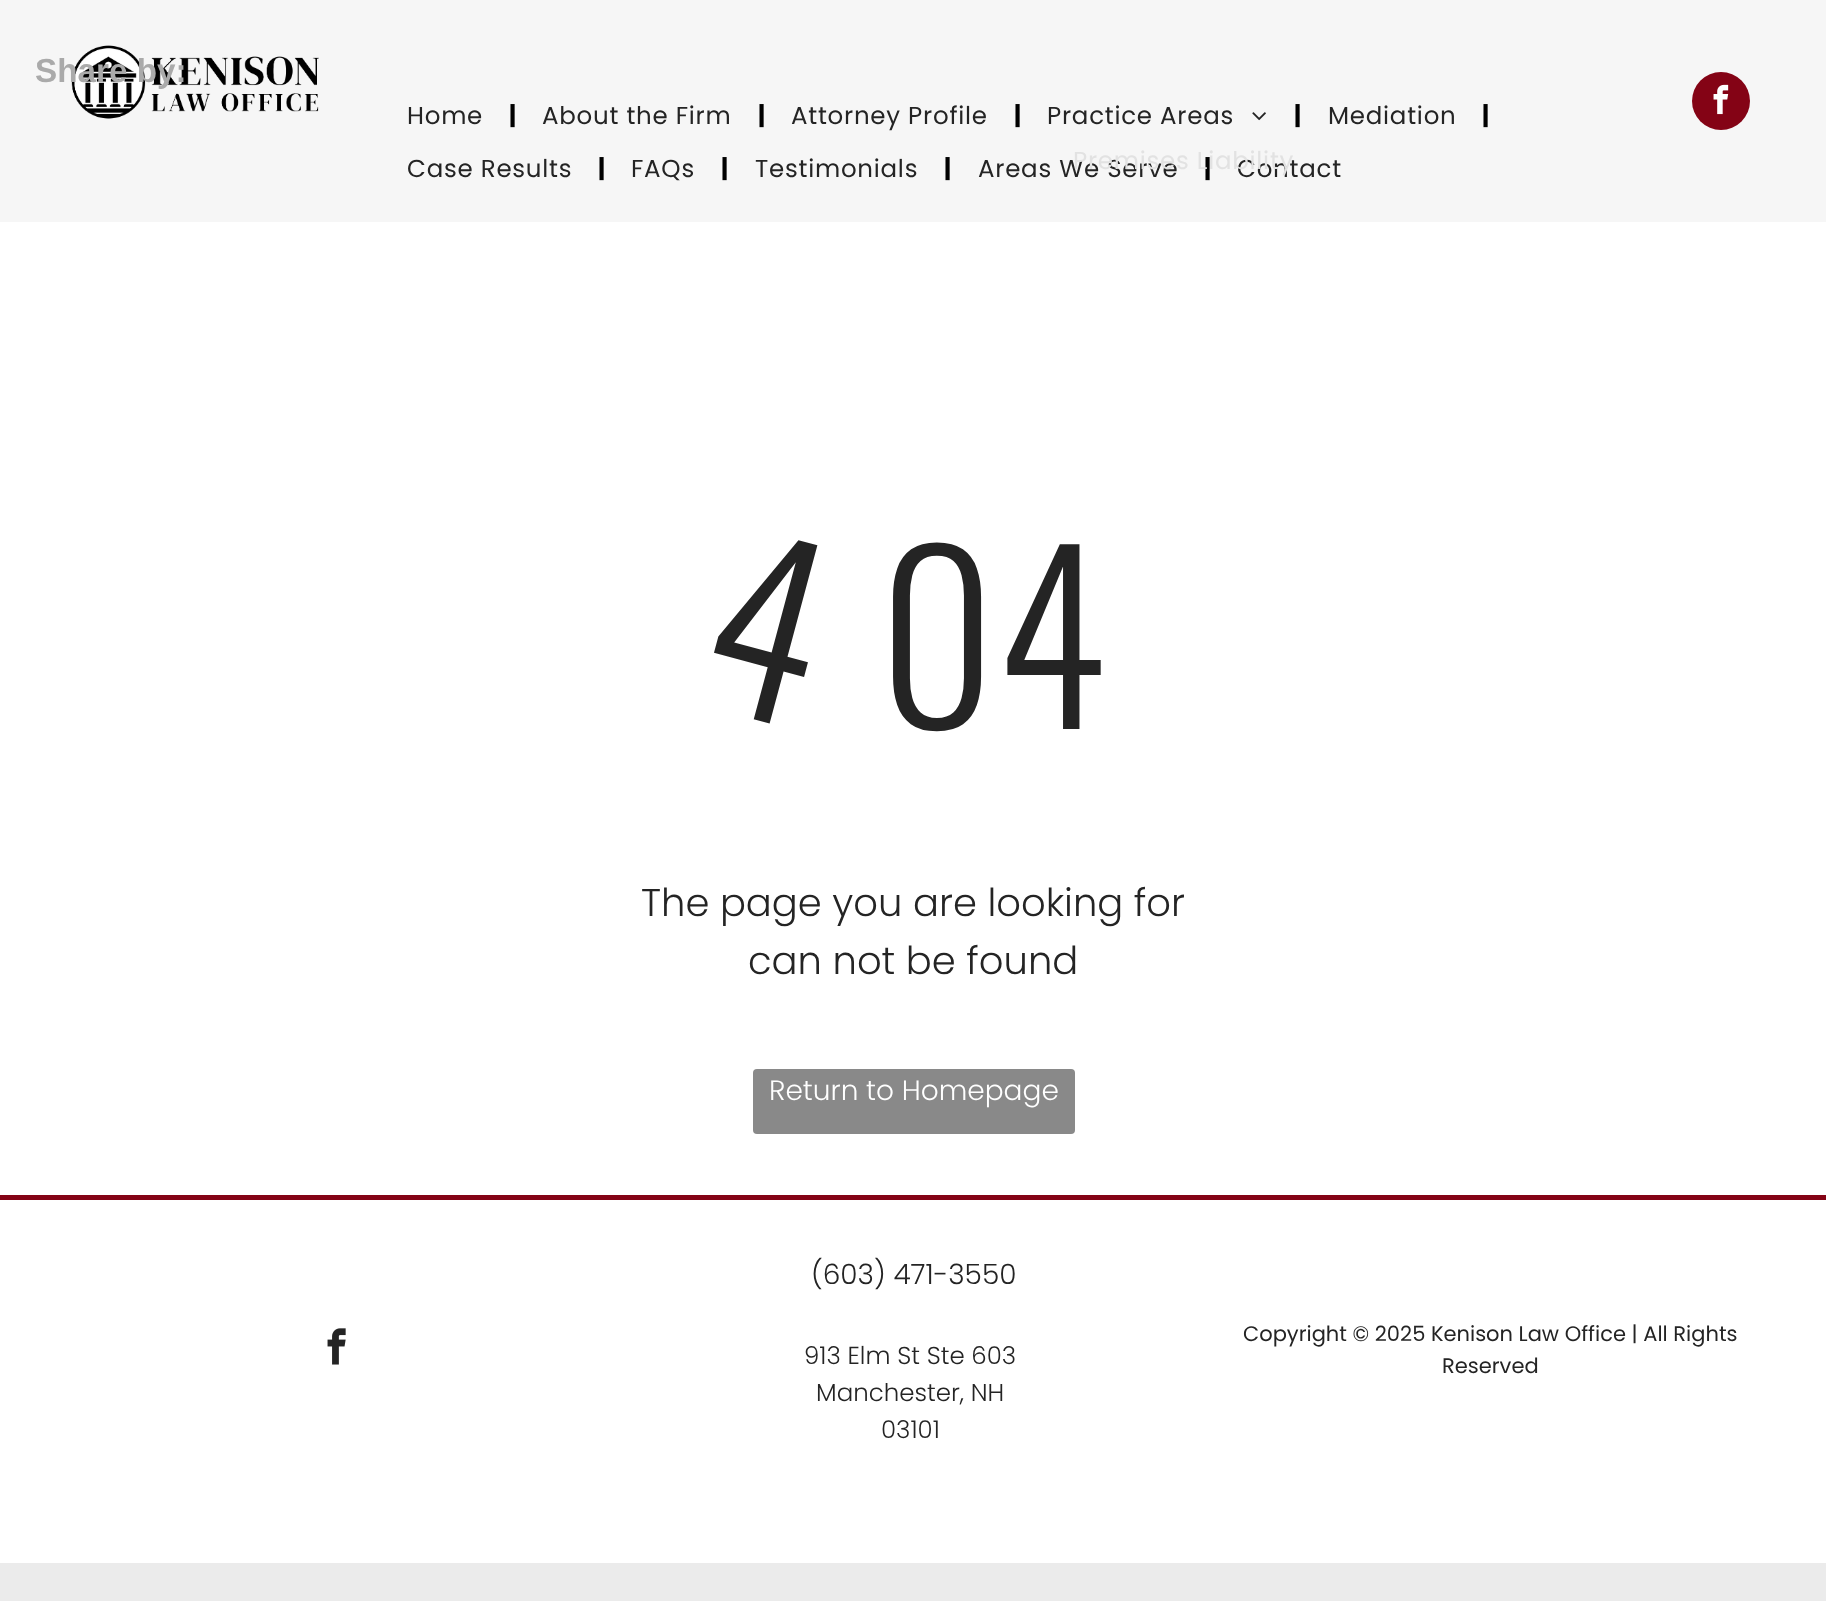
<!DOCTYPE html>
<meta charset="utf-8">
<style>body { margin: 0 } canvas { display: block }</style>
<canvas id="canvas" width="1826" height="1601"></canvas>
<script type="module">
  const canvas = document.getElementById("canvas");
  const g = canvas.getContext("2d");
  g.miterLimit = 4;
  g.fontKerning = "normal";
  function drawText(s, x, y, [font, color]) {
    g.font = font;
    g.fillStyle = color;
    g.fillText(s, x, y);
  }
  function fillBox(x, y, w, h, color) {
    g.fillStyle = color;
    g.fillRect(x, y, w, h);
  }
  function fillRounded(x, y, w, h, r, color) {
    g.fillStyle = color;
    g.beginPath();
    g.roundRect(x, y, w, h, r);
    g.fill();
  }
  async function drawPicture(src, x, y, w, h) {
    const img = new Image();
    img.src = src;
    await img.decode();
    g.drawImage(img, x, y, w, h);
  }

  const s1 = ["bold 33.25px Liberation Sans", "#AAAAAA"];
  const s2 = ["24.5px Poppins", "#242424"];
  const s3 = ["bold 24.5px Poppins", "#000000"];
  const s4 = ["24.5px Poppins", "#E2E2E2"];
  const s5 = ["300 228px Oswald", "#242424"];
  const s6 = ["300 38.5px Poppins", "#242424"];
  const s7 = ["300 28px Poppins", "#FFFFFF"];
  const s8 = ["300 28px Poppins", "#242424"];
  const s9 = ["300 24.5px Poppins", "#242424"];
  const s10 = ["21px Poppins", "#242424"];

  fillBox(0, 0, 1826, 1601, "#EBEBEB");
  fillBox(0, 0, 1826, 222, "#F6F6F6");
  await drawPicture("pic1.png", 71, 45, 248, 74);
  drawText("Share by:", 35, 82, s1);
  g.letterSpacing = "0.75px";
  drawText("Home", 407, 124, s2);
  g.letterSpacing = "0px";
  drawText("|", 509, 124, s3);
  g.letterSpacing = "0.75px";
  drawText("About the Firm", 542, 124, s2);
  g.letterSpacing = "0px";
  drawText("|", 758, 124, s3);
  g.letterSpacing = "0.75px";
  drawText("Attorney Profile", 791, 124, s2);
  g.letterSpacing = "0px";
  drawText("|", 1014, 124, s3);
  g.letterSpacing = "0.75px";
  drawText("Practice Areas", 1047, 124, s2);
  await drawPicture("pic2.png", 1252, 112, 14, 9);
  g.letterSpacing = "0px";
  drawText("|", 1294, 124, s3);
  g.letterSpacing = "0.75px";
  drawText("Areas We Serve", 978, 177, s2);
  g.letterSpacing = "0px";
  drawText("|", 1204, 177, s3);
  g.letterSpacing = "0.75px";
  drawText("Contact", 1237, 177, s2);
  drawText("Premises Liability", 1073, 169, s4);
  drawText("Mediation", 1328, 124, s2);
  g.letterSpacing = "0px";
  drawText("|", 1482, 124, s3);
  g.letterSpacing = "0.75px";
  drawText("Case Results", 407, 177, s2);
  g.letterSpacing = "0px";
  drawText("|", 598, 177, s3);
  g.letterSpacing = "0.75px";
  drawText("FAQs", 631, 177, s2);
  g.letterSpacing = "0px";
  drawText("|", 721, 177, s3);
  g.letterSpacing = "0.75px";
  drawText("Testimonials", 755, 177, s2);
  g.letterSpacing = "0px";
  drawText("|", 944, 177, s3);
  g.fillStyle = "#840315";
  g.beginPath();
  g.arc(1721, 101, 29, 0, Math.PI * 2);
  g.fill();
  await drawPicture("pic3.png", 1713, 84, 16, 31);
  fillBox(0, 222, 1826, 973, "#FFFFFF");
  g.font = "300 228px Oswald";
  g.fillStyle = "#242424";
  g.save();
  g.translate(689, 702);
  g.rotate(15 * Math.PI / 180);
  g.fillText("4", 0, 0);
  g.restore();
  drawText("04", 878, 729, s5);
  drawText("The page you are looking for", 641, 916, s6);
  drawText("can not be found", 748, 974, s6);
  fillRounded(753, 1069, 322, 65, 4, "#898989");
  drawText("Return to Homepage", 769, 1100, s7);
  fillBox(0, 1200, 1826, 363, "#FFFFFF");
  fillBox(0, 1195, 1826, 5, "#840315");
  await drawPicture("pic4.png", 327, 1328, 19, 37);
  drawText("(603) 471-3550", 811, 1284, s8);
  drawText("913 Elm St Ste 603", 804, 1364, s9);
  drawText("Manchester, NH", 816, 1401, s9);
  drawText("03101", 881, 1438, s9);
  drawText("Copyright © 2025 Kenison Law Office | All Rights", 1243, 1341, s10);
  drawText("Reserved", 1442, 1373, s10);
</script>
